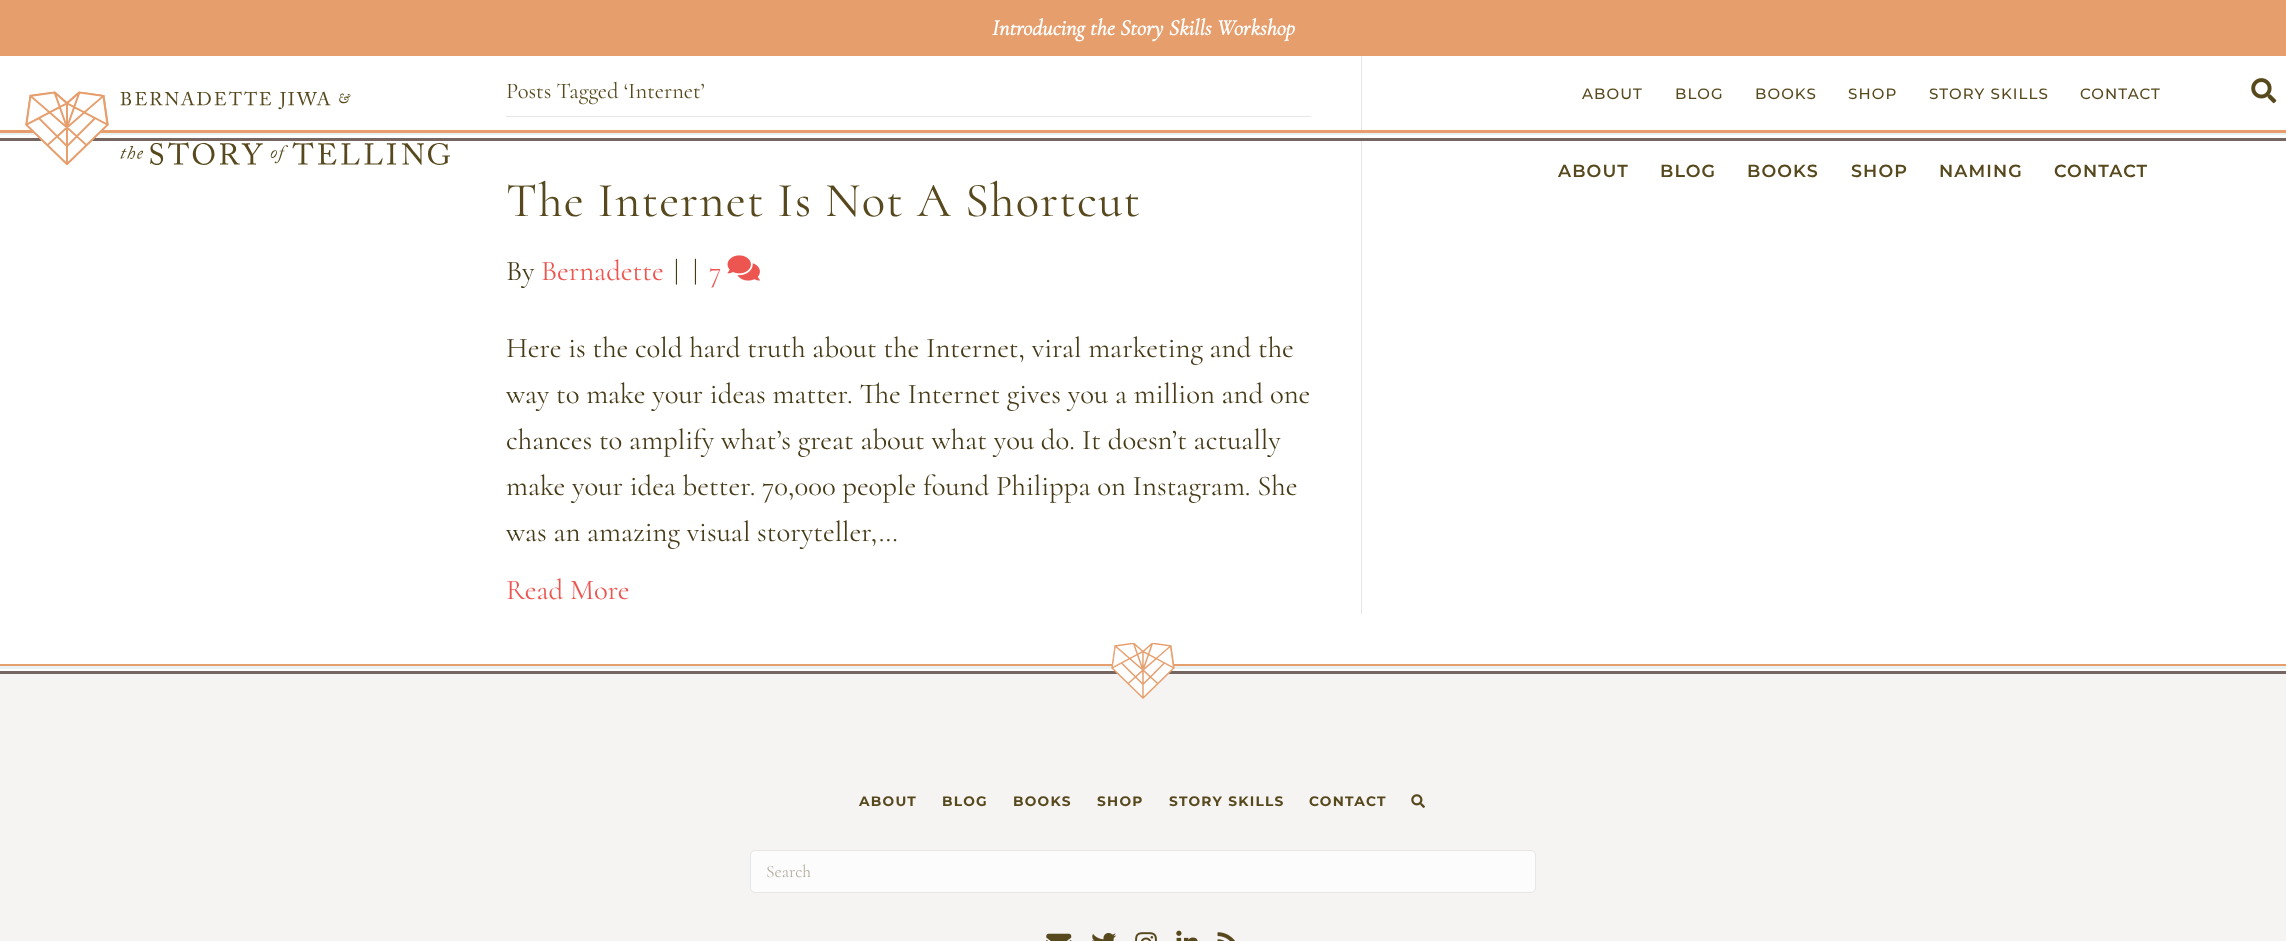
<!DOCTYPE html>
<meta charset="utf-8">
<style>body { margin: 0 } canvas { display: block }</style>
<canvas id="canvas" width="2286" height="941"></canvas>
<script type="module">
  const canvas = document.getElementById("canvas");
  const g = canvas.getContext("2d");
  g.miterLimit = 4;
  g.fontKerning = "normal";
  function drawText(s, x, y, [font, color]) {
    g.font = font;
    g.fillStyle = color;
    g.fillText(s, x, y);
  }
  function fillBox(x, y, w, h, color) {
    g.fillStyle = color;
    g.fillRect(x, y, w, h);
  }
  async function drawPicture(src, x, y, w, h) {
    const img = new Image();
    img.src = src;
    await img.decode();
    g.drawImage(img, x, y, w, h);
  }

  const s1 = ["22.5px Cormorant", "#57491D"];
  const s2 = ["48.75px Cormorant", "#57491D"];
  const s3 = ["28.75px Cormorant", "#463A17"];
  const s4 = ["28.75px Cormorant", "#ED5550"];
  const s5 = ["italic bold 22.5px Cormorant", "#FFFFFF"];
  const s6 = ["500 15px Montserrat", "#57491D"];
  const s7 = ["600 17.5px Montserrat", "#57491D"];
  const s8 = ["bold 13.75px Montserrat", "#57491D"];
  const s9 = ["17.5px Cormorant", "#B3AEA0"];

  fillBox(0, 0, 2286, 941, "#FFFFFF");
  fillBox(1361, 50, 1, 564, "#E6E6E6");
  fillBox(506, 116, 805, 1, "#E6E6E6");
  drawText("Posts Tagged ‘Internet’", 506, 98, s1);
  g.letterSpacing = "1.25px";
  drawText("The Internet Is Not A Shortcut", 506, 216, s2);
  g.letterSpacing = "0px";
  drawText("By", 506, 280, s3);
  drawText("Bernadette", 541, 280, s4);
  drawText("|", 674, 280, s3);
  drawText("|", 693, 280, s3);
  drawText("7", 709, 280, s4);
  await drawPicture("pic1.png", 727, 255, 33, 26);
  drawText("Here is the cold hard truth about the Internet, viral marketing and the", 506, 357, s3);
  drawText("way to make your ideas matter. The Internet gives you a million and one", 506, 403, s3);
  drawText("chances to amplify what’s great about what you do. It doesn’t actually", 506, 449, s3);
  drawText("make your idea better. 70,000 people found Philippa on Instagram. She", 506, 495, s3);
  drawText("was an amazing visual storyteller,…", 506, 541, s3);
  drawText("Read More", 506, 599, s4);
  fillBox(0, 0, 2286, 56, "#E69E6D");
  drawText("Introducing the Story Skills Workshop", 992, 35, s5);
  fillBox(0, 130, 2286, 3, "#E69E6D");
  fillBox(0, 133, 2286, 2, "#E9F2F5");
  fillBox(0, 138, 2286, 3, "#756662");
  await drawPicture("pic2.png", 25, 91, 425, 74);
  g.letterSpacing = "1.1px";
  drawText("ABOUT", 1582, 99, s6);
  drawText("BLOG", 1675, 99, s6);
  drawText("BOOKS", 1755, 99, s6);
  drawText("SHOP", 1848, 99, s6);
  drawText("STORY SKILLS", 1929, 99, s6);
  drawText("CONTACT", 2080, 99, s6);
  await drawPicture("pic3.png", 2251, 78, 26, 26);
  fillBox(1361, 135, 1, 3, "#FFFFFF");
  drawText("ABOUT", 1558, 177, s7);
  drawText("BLOG", 1660, 177, s7);
  drawText("BOOKS", 1747, 177, s7);
  drawText("SHOP", 1851, 177, s7);
  drawText("NAMING", 1939, 177, s7);
  drawText("CONTACT", 2054, 177, s7);
  fillBox(0, 674, 2286, 267, "#F5F4F2");
  fillBox(0, 664, 2286, 2, "#E69E6D");
  fillBox(0, 666, 2286, 3, "#E9F2F5");
  fillBox(0, 671, 2286, 3, "#756662");
  await drawPicture("pic4.png", 1111, 643, 64, 56);
  g.letterSpacing = "1.25px";
  drawText("ABOUT", 859, 806, s8);
  drawText("BLOG", 942, 806, s8);
  drawText("BOOKS", 1013, 806, s8);
  drawText("SHOP", 1097, 806, s8);
  drawText("STORY SKILLS", 1169, 806, s8);
  drawText("CONTACT", 1309, 806, s8);
  await drawPicture("pic5.png", 1411, 794, 14, 14);
  g.fillStyle = "#FCFCFC";
  g.beginPath();
  g.roundRect(750.5, 850.5, 785, 42, 4.5);
  g.fill();
  g.strokeStyle = "#E6E6E6";
  g.stroke();
  g.letterSpacing = "0px";
  drawText("Search", 766, 877, s9);
  await drawPicture("pic6.png", 1046, 933, 26, 8);
  await drawPicture("pic7.png", 1092, 933, 25, 8);
  await drawPicture("pic8.png", 1135, 932, 22, 9);
  await drawPicture("pic9.png", 1176, 930, 22, 11);
  await drawPicture("pic10.png", 1217, 932, 18, 9);
</script>
